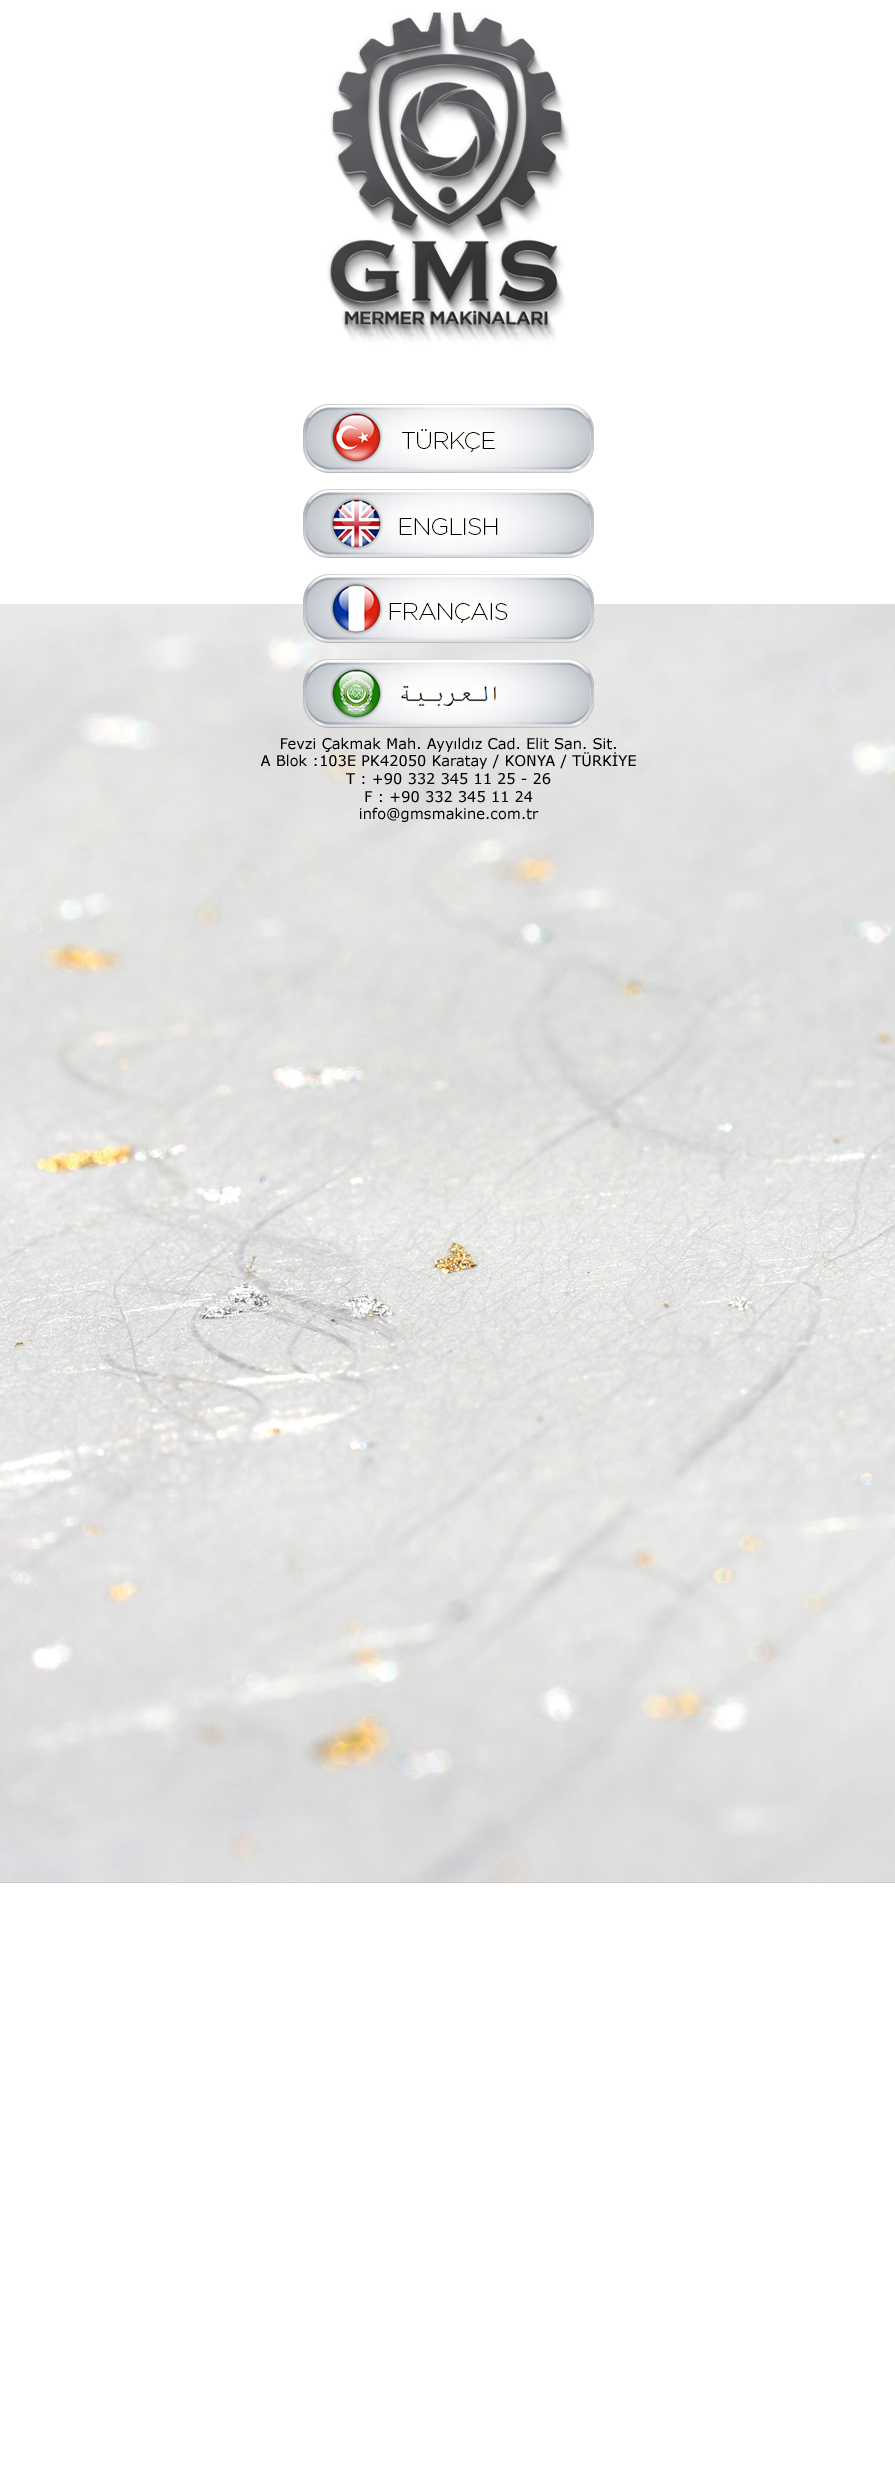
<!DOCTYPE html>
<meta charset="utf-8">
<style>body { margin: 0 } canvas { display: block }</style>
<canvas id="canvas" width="895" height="2487"></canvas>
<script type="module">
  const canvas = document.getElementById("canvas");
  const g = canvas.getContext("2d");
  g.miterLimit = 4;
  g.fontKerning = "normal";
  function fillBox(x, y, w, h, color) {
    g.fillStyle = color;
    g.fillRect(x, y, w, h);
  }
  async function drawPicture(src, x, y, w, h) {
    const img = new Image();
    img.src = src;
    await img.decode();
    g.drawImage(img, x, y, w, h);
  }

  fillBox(0, 0, 895, 2487, "#FFFFFF");
  await drawPicture("pic1.png", 0, 604, 895, 1279);
  await drawPicture("pic2.png", 260, 10, 376, 812);
</script>
